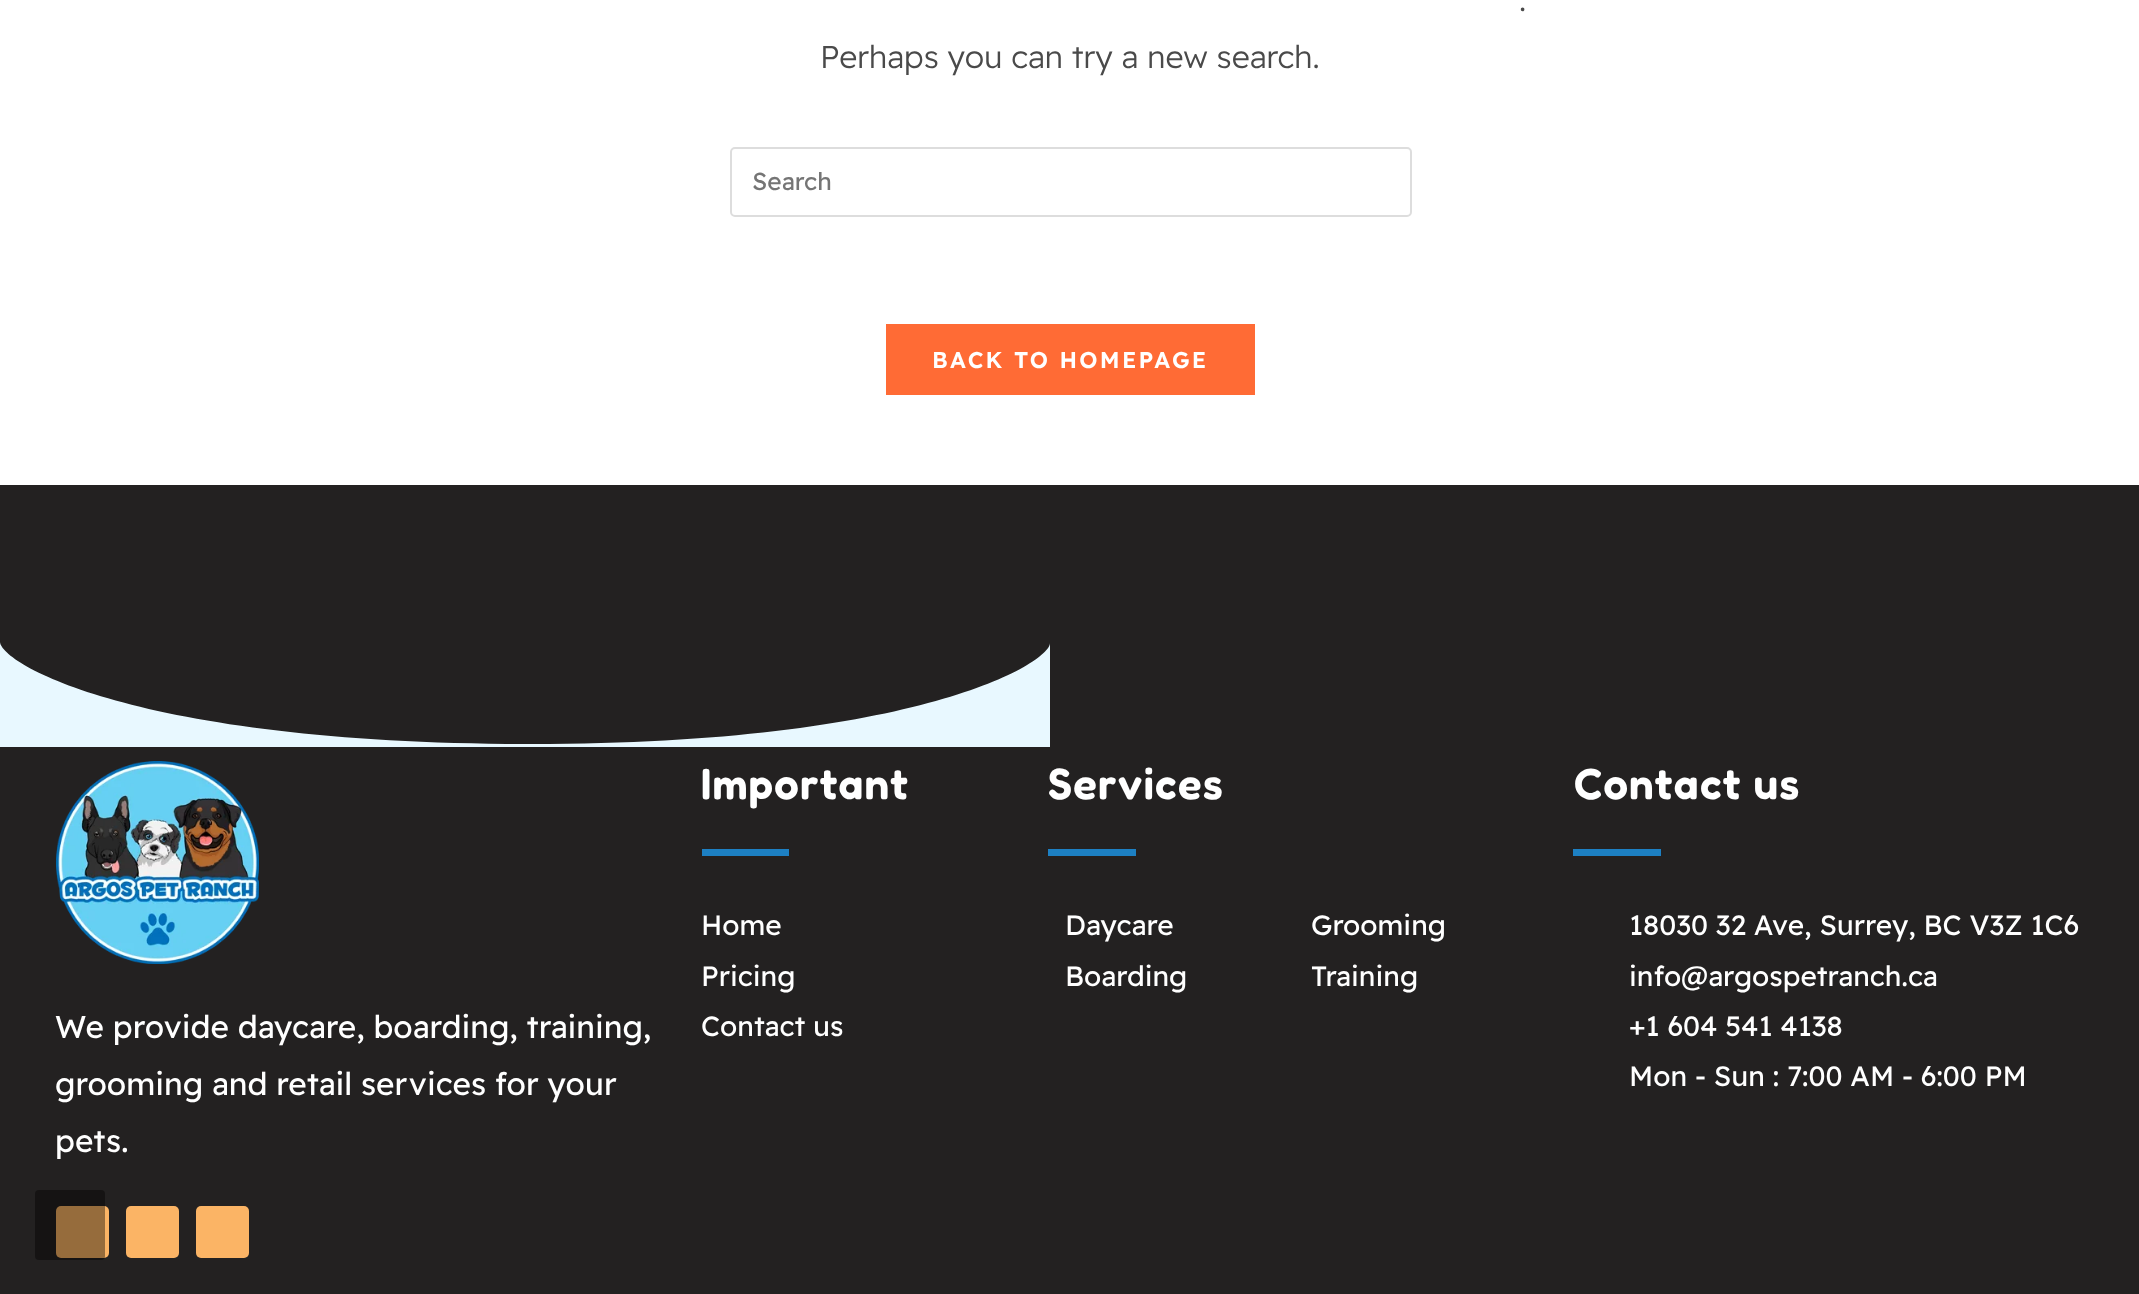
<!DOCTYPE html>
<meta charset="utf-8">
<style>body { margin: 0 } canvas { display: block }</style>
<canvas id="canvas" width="2139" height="1294"></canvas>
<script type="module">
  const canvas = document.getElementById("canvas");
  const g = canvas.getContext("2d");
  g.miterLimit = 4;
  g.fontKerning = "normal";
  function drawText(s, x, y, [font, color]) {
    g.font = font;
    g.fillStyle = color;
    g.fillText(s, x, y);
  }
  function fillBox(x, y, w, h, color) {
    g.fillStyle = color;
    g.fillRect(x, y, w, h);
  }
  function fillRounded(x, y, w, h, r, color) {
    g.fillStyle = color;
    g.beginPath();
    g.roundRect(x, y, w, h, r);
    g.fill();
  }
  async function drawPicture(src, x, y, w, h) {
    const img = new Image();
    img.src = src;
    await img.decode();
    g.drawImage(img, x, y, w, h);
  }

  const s1 = ["300 31.5px Readex Pro", "#4A4A4A"];
  const s2 = ["24.5px Readex Pro", "#757575"];
  const s3 = ["600 22.75px Readex Pro", "#FFFFFF"];
  const s4 = ["31.5px Readex Pro", "#FFFFFF"];
  const s5 = ["600 43.75px Fredoka", "#FFFFFF"];
  const s6 = ["28px Readex Pro", "#FFFFFF"];

  fillBox(0, 0, 2139, 1294, "#FFFFFF");
  drawText(".", 1519, 11, s1);
  drawText("Perhaps you can try a new search.", 820, 68, s1);
  g.beginPath();
  g.roundRect(731, 148, 680, 68, 4);
  g.strokeStyle = "#DDDDDD";
  g.lineWidth = 2;
  g.stroke();
  drawText("Search", 752, 190, s2);
  fillBox(886, 324, 369, 71, "#FF6B35");
  g.letterSpacing = "2.25px";
  drawText("BACK TO HOMEPAGE", 932, 368, s3);
  fillBox(0, 485, 2139, 809, "#232121");
  g.fillStyle = "#E8F8FF";
  g.beginPath();
  g.moveTo(525, 744);
  g.bezierCurveTo(133, 743, 1, 663, 0, 642);
  g.lineTo(0, 747);
  g.lineTo(1050, 747);
  g.lineTo(1050, 643);
  g.bezierCurveTo(1050, 663, 917, 745, 525, 744);
  g.closePath();
  g.fill();
  await drawPicture("pic1.png", 56, 761, 203, 203);
  g.letterSpacing = "0px";
  drawText("We provide daycare, boarding, training,", 55, 1038, s4);
  drawText("grooming and retail services for your", 55, 1095, s4);
  drawText("pets.", 55, 1152, s4);
  fillRounded(56, 1206, 53, 52, 5, "#FBB465");
  fillRounded(126, 1206, 53, 52, 5, "#FBB465");
  fillRounded(196, 1206, 53, 52, 5, "#FBB465");
  g.letterSpacing = "1.25px";
  drawText("Important", 701, 799, s5);
  fillBox(702, 849, 87, 7, "#1D80C3");
  g.letterSpacing = "0px";
  drawText("Home", 701, 935, s6);
  drawText("Pricing", 701, 986, s6);
  drawText("Contact us", 701, 1036, s6);
  g.letterSpacing = "1.25px";
  drawText("Services", 1048, 799, s5);
  fillBox(1048, 849, 88, 7, "#1D80C3");
  g.letterSpacing = "0px";
  drawText("Daycare", 1065, 935, s6);
  drawText("Boarding", 1065, 986, s6);
  drawText("Grooming", 1311, 935, s6);
  drawText("Training", 1311, 986, s6);
  g.letterSpacing = "1.25px";
  drawText("Contact us", 1574, 799, s5);
  fillBox(1573, 849, 88, 7, "#1D80C3");
  g.letterSpacing = "0px";
  drawText("18030 32 Ave, Surrey, BC V3Z 1C6", 1629, 935, s6);
  drawText("info@argospetranch.ca", 1629, 986, s6);
  drawText("+1 604 541 4138", 1629, 1036, s6);
  drawText("Mon - Sun : 7:00 AM - 6:00 PM", 1629, 1086, s6);
  fillRounded(35, 1190, 70, 70, 4, "rgba(0, 0, 0, 0.4)");
</script>
